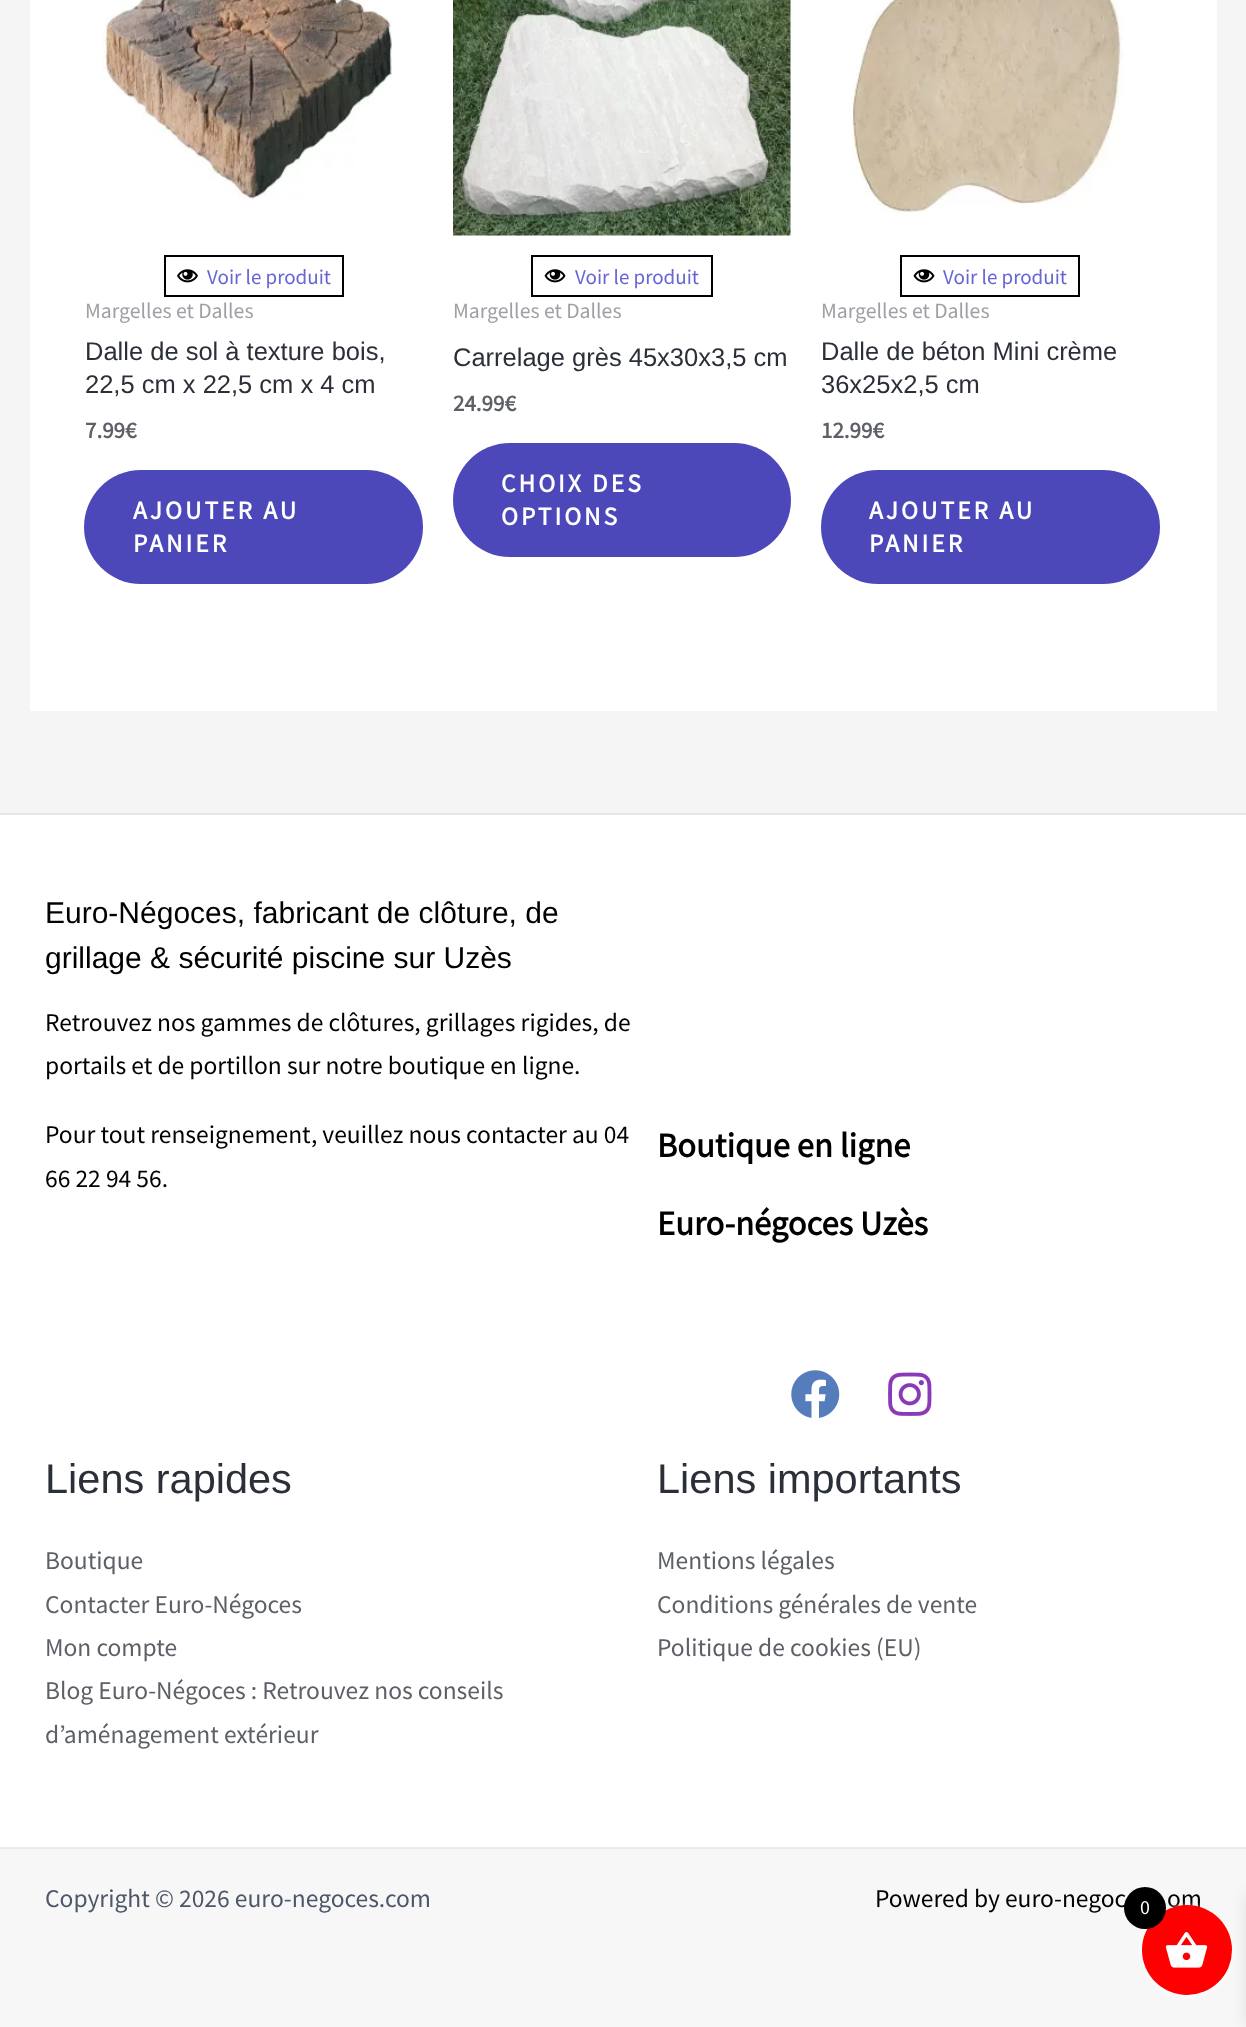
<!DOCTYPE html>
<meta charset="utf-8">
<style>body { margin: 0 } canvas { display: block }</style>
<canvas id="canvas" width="1246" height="2027"></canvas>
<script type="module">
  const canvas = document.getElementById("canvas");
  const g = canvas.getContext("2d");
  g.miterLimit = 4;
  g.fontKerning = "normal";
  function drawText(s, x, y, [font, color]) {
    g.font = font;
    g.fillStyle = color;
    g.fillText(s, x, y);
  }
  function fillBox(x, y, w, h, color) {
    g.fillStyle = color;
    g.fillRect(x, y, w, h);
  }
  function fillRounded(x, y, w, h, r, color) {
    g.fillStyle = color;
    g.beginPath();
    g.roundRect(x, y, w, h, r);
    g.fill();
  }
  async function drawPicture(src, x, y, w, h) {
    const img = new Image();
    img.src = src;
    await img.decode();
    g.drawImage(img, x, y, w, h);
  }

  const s1 = ["21px Source Sans Pro", "#6765D3"];
  const s2 = ["21.75px Source Sans Pro", "#9EA0A4"];
  const s3 = ["25.5px Liberation Sans", "#2B2F38"];
  const s4 = ["bold 23px Source Sans Pro", "#5D6167"];
  const s5 = ["bold 25.5px Source Sans Pro", "#FFFFFF"];
  const s6 = ["30px Liberation Sans", "#000000"];
  const s7 = ["25.5px Source Sans Pro", "#000000"];
  const s8 = ["bold 34.5px Source Sans Pro", "#000000"];
  const s9 = ["41.5px Liberation Sans", "#2B2F38"];
  const s10 = ["25.5px Source Sans Pro", "#5D6167"];
  const s11 = ["25.5px Source Sans Pro", "#4E5768"];
  const s12 = ["20px Source Sans Pro", "#FFFFFF"];

  fillBox(0, 0, 1246, 2027, "#F5F5F5");
  fillBox(30, 0, 1187, 711, "#FFFFFF");
  await drawPicture("pic1.png", 102, 0, 290, 200);
  g.strokeStyle = "#000000";
  g.lineWidth = 2;
  g.strokeRect(165, 256, 178, 40);
  await drawPicture("pic2.png", 177, 269, 21, 14);
  drawText("Voir le produit", 207, 284, s1);
  drawText("Margelles et Dalles", 85, 318, s2);
  drawText("Dalle de sol à texture bois,", 85, 360, s3);
  drawText("22,5 cm x 22,5 cm x 4 cm", 85, 393, s3);
  drawText("7.99€", 85, 438, s4);
  fillRounded(84, 470, 339, 114, 57, "#4D48BA");
  g.letterSpacing = "3px";
  drawText("AJOUTER AU", 133, 519, s5);
  drawText("PANIER", 133, 552, s5);
  await drawPicture("pic3.png", 453, 0, 338, 236);
  g.strokeRect(532, 256, 180, 40);
  await drawPicture("pic4.png", 544, 269, 22, 14);
  g.letterSpacing = "0px";
  drawText("Voir le produit", 575, 284, s1);
  drawText("Margelles et Dalles", 453, 318, s2);
  drawText("Carrelage grès 45x30x3,5 cm", 453, 366, s3);
  drawText("24.99€", 453, 411, s4);
  fillRounded(453, 443, 338, 114, 57, "#4D48BA");
  g.letterSpacing = "3px";
  drawText("CHOIX DES", 501, 492, s5);
  drawText("OPTIONS", 501, 525, s5);
  await drawPicture("pic5.png", 852, 0, 272, 213);
  g.strokeRect(901, 256, 178, 40);
  await drawPicture("pic4.png", 913, 269, 22, 14);
  g.letterSpacing = "0px";
  drawText("Voir le produit", 943, 284, s1);
  drawText("Margelles et Dalles", 821, 318, s2);
  drawText("Dalle de béton Mini crème", 821, 360, s3);
  drawText("36x25x2,5 cm", 821, 393, s3);
  drawText("12.99€", 821, 438, s4);
  fillRounded(821, 470, 339, 114, 57, "#4D48BA");
  g.letterSpacing = "3px";
  drawText("AJOUTER AU", 869, 519, s5);
  drawText("PANIER", 869, 552, s5);
  fillBox(0, 1849, 1246, 178, "#F7F7F8");
  fillBox(0, 815, 1246, 1032, "#FFFFFF");
  fillBox(0, 813, 1246, 2, "#E6E6E6");
  g.letterSpacing = "0px";
  drawText("Euro-Négoces, fabricant de clôture, de", 45, 923, s6);
  drawText("grillage & sécurité piscine sur Uzès", 45, 968, s6);
  drawText("Retrouvez nos gammes de clôtures, grillages rigides, de", 45, 1031, s7);
  drawText("portails et de portillon sur notre boutique en ligne.", 45, 1074, s7);
  drawText("Pour tout renseignement, veuillez nous contacter au 04", 45, 1143, s7);
  drawText("66 22 94 56.", 45, 1187, s7);
  drawText("Boutique en ligne", 657, 1157, s8);
  drawText("Euro-négoces Uzès", 657, 1235, s8);
  await drawPicture("pic6.png", 791, 1370, 49, 48);
  await drawPicture("pic7.png", 888, 1372, 44, 44);
  drawText("Liens rapides", 45, 1493, s9);
  drawText("Boutique", 45, 1569, s10);
  drawText("Contacter Euro-Négoces", 45, 1613, s10);
  drawText("Mon compte", 45, 1656, s10);
  drawText("Blog Euro-Négoces : Retrouvez nos conseils", 45, 1699, s10);
  drawText("d’aménagement extérieur", 45, 1743, s10);
  drawText("Liens importants", 657, 1493, s9);
  drawText("Mentions légales", 657, 1569, s10);
  drawText("Conditions générales de vente", 657, 1613, s10);
  drawText("Politique de cookies (EU)", 657, 1656, s10);
  fillBox(0, 1847, 1246, 2, "#EAEAEA");
  drawText("Copyright © 2026 euro-negoces.com", 45, 1907, s11);
  drawText("Powered by euro-negoc", 875, 1907, s7);
  drawText("om", 1167, 1907, s7);
  g.fillStyle = "#FFFFFF";
  g.filter = "blur(3px)";
  g.beginPath();
  g.roundRect(1142, 1907, 90, 90, 45);
  g.fill();
  g.filter = "none";
  g.fillStyle = "rgba(0, 0, 0, 0.1)";
  g.filter = "blur(7.5px)";
  g.beginPath();
  g.rect(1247, 1895, 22, 132);
  g.fill();
  g.filter = "none";
  g.fillStyle = "#FF0000";
  g.beginPath();
  g.arc(1187, 1950, 45, 0, Math.PI * 2);
  g.fill();
  g.fillStyle = "#000000";
  g.beginPath();
  g.arc(1145, 1908, 21, 0, Math.PI * 2);
  g.fill();
  drawText("0", 1140, 1914, s12);
  await drawPicture("pic8.png", 1165, 1932, 43, 36);
</script>
